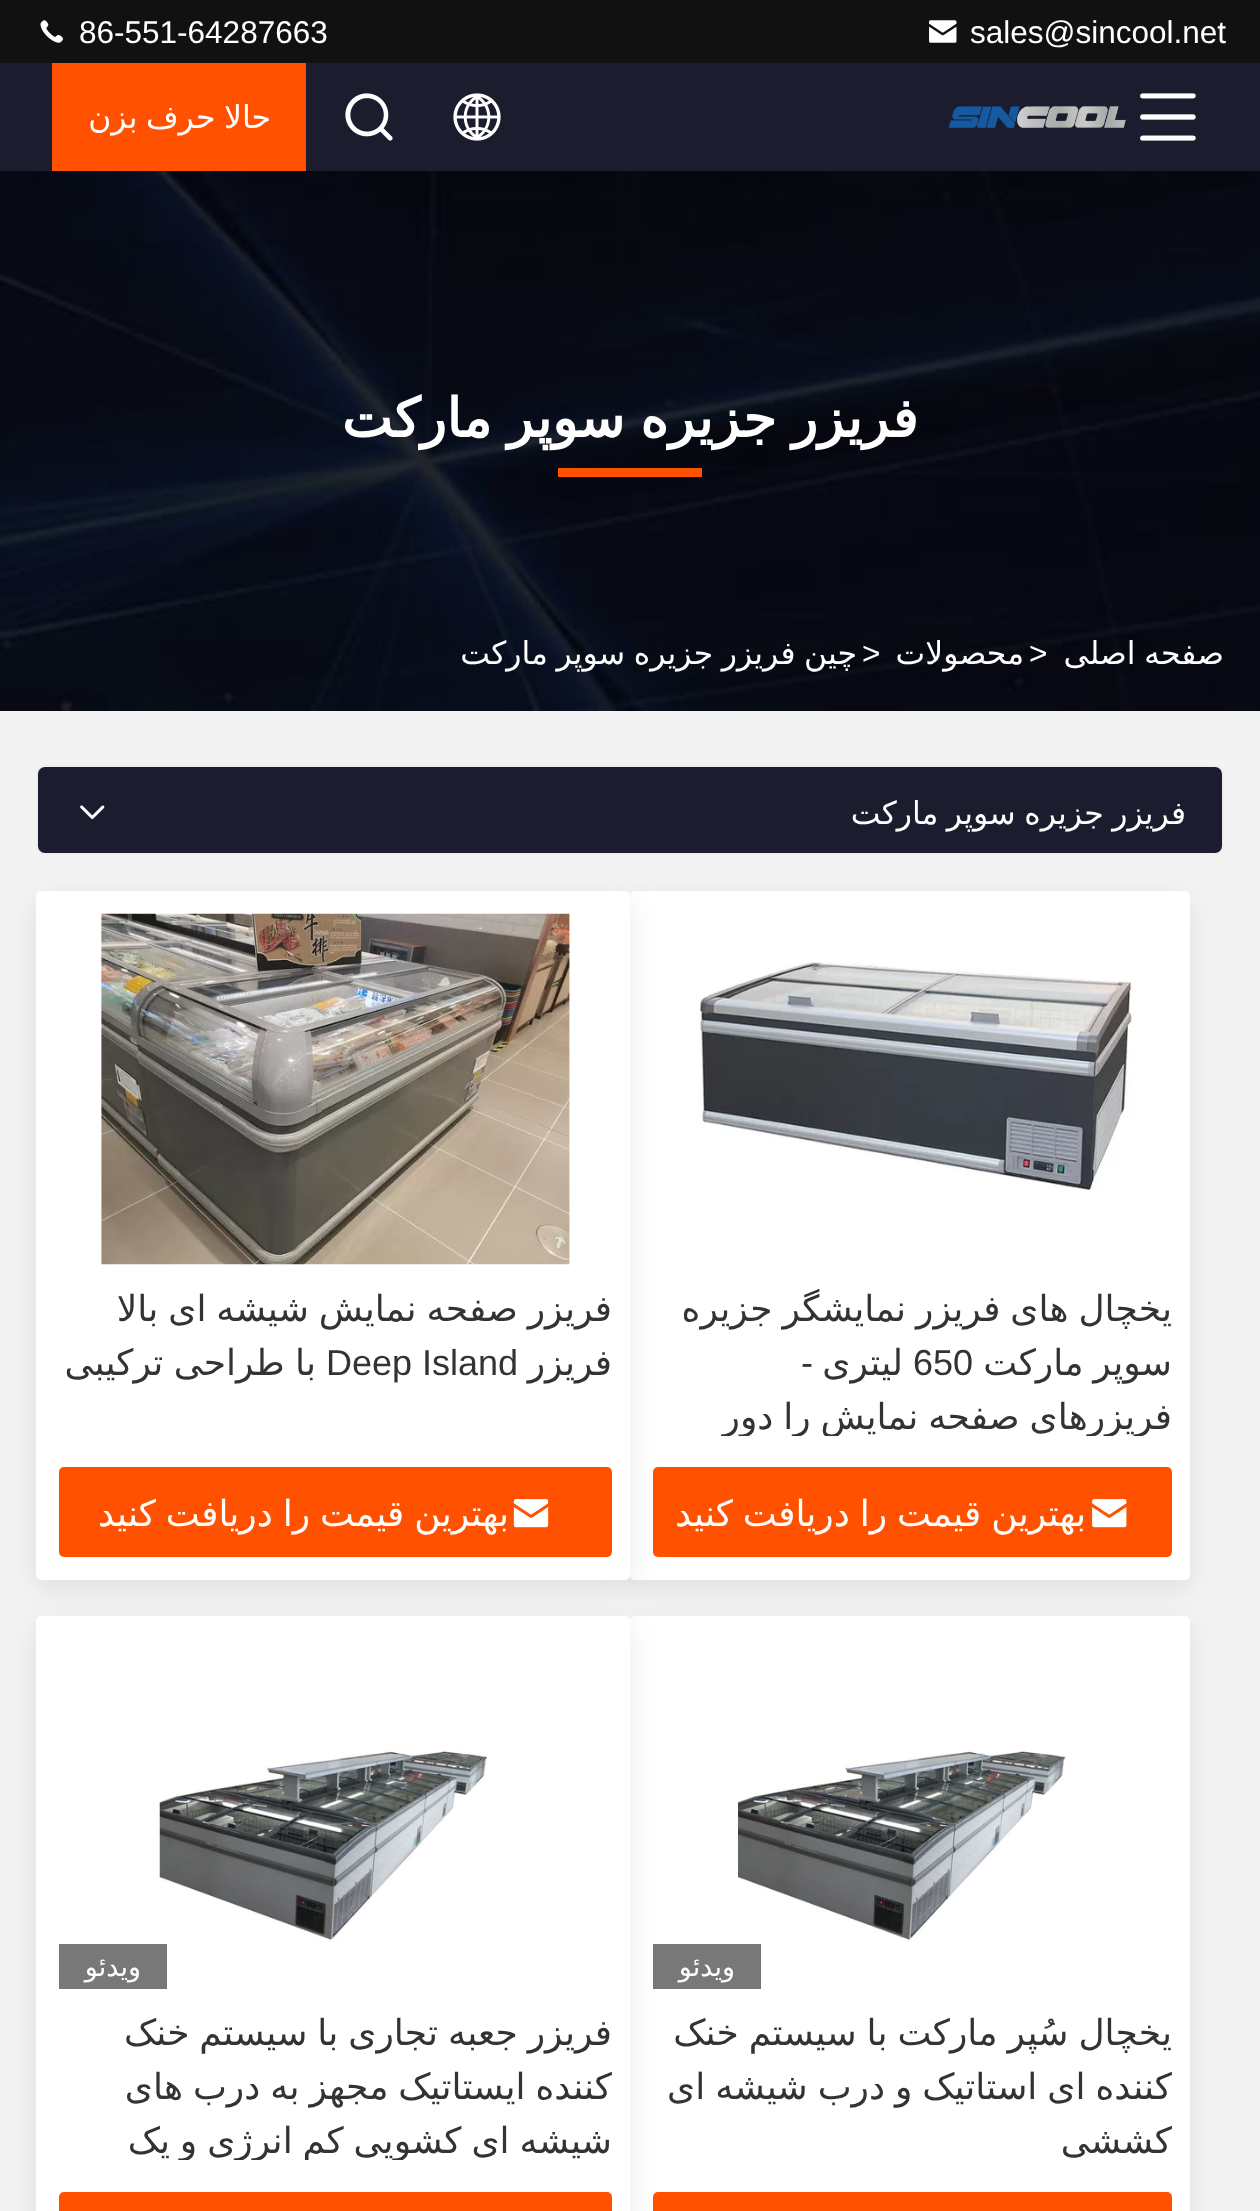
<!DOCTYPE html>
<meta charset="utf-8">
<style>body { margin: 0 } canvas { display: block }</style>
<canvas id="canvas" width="1260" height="2211"></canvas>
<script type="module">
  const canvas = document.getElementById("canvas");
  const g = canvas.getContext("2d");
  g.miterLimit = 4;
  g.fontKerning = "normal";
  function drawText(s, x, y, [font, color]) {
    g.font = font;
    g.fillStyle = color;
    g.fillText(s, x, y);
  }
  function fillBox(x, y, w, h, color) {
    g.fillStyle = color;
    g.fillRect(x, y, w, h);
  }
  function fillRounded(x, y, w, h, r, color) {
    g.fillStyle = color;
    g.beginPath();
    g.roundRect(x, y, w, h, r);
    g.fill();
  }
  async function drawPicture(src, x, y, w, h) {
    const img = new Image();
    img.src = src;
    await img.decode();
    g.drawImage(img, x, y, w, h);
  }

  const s1 = ["31.5px Liberation Sans", "#FFFFFF"];
  const s2 = ["31.5px DejaVu Sans", "#FFFFFF"];
  const s3 = ["bold 54px DejaVu Sans", "#FFFFFF"];
  const s4 = ["36px DejaVu Sans", "#333333"];
  const s5 = ["36px Liberation Sans", "#333333"];
  const s6 = ["36px DejaVu Sans", "#FFFFFF"];
  const s7 = ["27px DejaVu Sans", "#FFFFFF"];

  fillBox(0, 0, 1260, 2211, "#F3F3F3");
  fillBox(0, 0, 1260, 63, "#111111");
  drawText("sales@sincool.net", 970, 43, s1);
  await drawPicture("pic1.png", 929, 20, 28, 23);
  drawText("86-551-64287663", 79, 43, s1);
  await drawPicture("pic2.png", 40, 20, 23, 23);
  fillBox(0, 63, 1260, 108, "#1B1D2E");
  await drawPicture("pic3.png", 1140, 93, 56, 48);
  await drawPicture("pic4.png", 948, 106, 178, 22);
  await drawPicture("pic5.png", 453, 93, 48, 48);
  await drawPicture("pic6.png", 345, 93, 48, 48);
  fillBox(52, 63, 254, 108, "#FF5100");
  g.wordSpacing = "-1.5px";
  g.direction = "rtl";
  drawText("حالا حرف بزن", 271, 128, s2);
  await drawPicture("pic7.png", 0, 171, 1260, 540);
  g.wordSpacing = "-2px";
  drawText("فریزر جزیره سوپر مارکت", 918, 437, s3);
  fillBox(558, 468, 144, 9, "#FF5100");
  g.wordSpacing = "-1.5px";
  drawText("صفحه اصلی", 1224, 664, s2);
  g.wordSpacing = "0px";
  g.direction = "ltr";
  drawText(">", 1029, 664, s1);
  g.direction = "rtl";
  drawText("محصولات", 1024, 664, s2);
  g.direction = "ltr";
  drawText(">", 862, 664, s1);
  g.save();
  g.beginPath();
  g.rect(459, 614, 398, 77);
  g.clip();
  g.wordSpacing = "-1.5px";
  g.direction = "rtl";
  drawText("چین فریزر جزیره سوپر مارکت", 857, 664, s2);
  g.restore();
  g.fillStyle = "#1B1D2E";
  g.beginPath();
  g.roundRect(37, 766, 1186, 88, 8);
  g.fill();
  g.strokeStyle = "#EEEEEE";
  g.lineWidth = 2;
  g.stroke();
  g.wordSpacing = "-1.5px";
  g.direction = "rtl";
  drawText("فریزر جزیره سوپر مارکت", 1186, 824, s2);
  await drawPicture("pic8.png", 80, 805, 25, 15);
  g.fillStyle = "rgba(0, 0, 0, 0.08)";
  g.filter = "blur(13.5px)";
  g.beginPath();
  g.roundRect(630, 900, 560, 689, 5);
  g.fill();
  g.filter = "none";
  fillRounded(630, 891, 560, 689, 5, "#FFFFFF");
  await drawPicture("pic9.png", 699, 962, 435, 229);
  g.save();
  g.beginPath();
  g.rect(653, 1283, 519, 153);
  g.clip();
  drawText("یخچال های فریزر نمایشگر جزیره", 1172, 1321, s4);
  g.restore();
  drawText("سوپر مارکت", 1172, 1375, s4);
  g.wordSpacing = "0px";
  g.direction = "ltr";
  drawText("650", 913, 1375, s5);
  g.direction = "rtl";
  drawText("لیتری", 903, 1375, s4);
  drawText("-", 813, 1375, s5);
  g.save();
  g.beginPath();
  g.rect(653, 1283, 519, 153);
  g.clip();
  g.wordSpacing = "-1.5px";
  drawText("فریزرهای صفحه نمایش را دور", 1172, 1429, s4);
  g.restore();
  g.fillStyle = "rgba(0, 0, 0, 0.08)";
  g.filter = "blur(13.5px)";
  g.beginPath();
  g.roundRect(36, 900, 594, 689, 5);
  g.fill();
  g.filter = "none";
  fillRounded(653, 1467, 519, 90, 5, "#FF5100");
  await drawPicture("pic10.png", 1092, 1499, 35, 29);
  g.wordSpacing = "-1.5px";
  drawText("بهترین قیمت را دریافت کنید", 1086, 1526, s6);
  fillRounded(36, 891, 594, 689, 5, "#FFFFFF");
  await drawPicture("pic11.png", 101, 913, 469, 352);
  g.save();
  g.beginPath();
  g.rect(59, 1283, 553, 153);
  g.clip();
  drawText("فریزر صفحه نمایش شیشه ای بالا", 612, 1321, s4);
  g.restore();
  g.wordSpacing = "0px";
  drawText("فریزر", 612, 1375, s4);
  g.direction = "ltr";
  drawText("Deep Island", 326, 1375, s5);
  g.wordSpacing = "-1px";
  g.direction = "rtl";
  drawText("با طراحی ترکیبی", 316, 1375, s4);
  fillRounded(59, 1467, 553, 90, 5, "#FF5100");
  await drawPicture("pic12.png", 513, 1499, 36, 29);
  g.wordSpacing = "-1.5px";
  drawText("بهترین قیمت را دریافت کنید", 509, 1526, s6);
  g.fillStyle = "rgba(0, 0, 0, 0.08)";
  g.filter = "blur(13.5px)";
  g.beginPath();
  g.roundRect(630, 1625, 560, 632, 5);
  g.fill();
  g.filter = "none";
  fillRounded(630, 1616, 560, 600, 5, "#FFFFFF");
  await drawPicture("pic13.png", 738, 1751, 328, 191);
  g.fillStyle = "rgba(0, 0, 0, 0.08)";
  g.filter = "blur(13.5px)";
  g.beginPath();
  g.roundRect(36, 1625, 594, 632, 5);
  g.fill();
  g.filter = "none";
  fillBox(653, 1944, 108, 45, "#787878");
  g.wordSpacing = "0px";
  drawText("ویدئو", 735, 1976, s7);
  g.save();
  g.beginPath();
  g.rect(653, 2007, 519, 153);
  g.clip();
  g.wordSpacing = "-1.5px";
  drawText("یخچال سُپر مارکت با سیستم خنک", 1172, 2045, s4);
  drawText("کننده ای استاتیک و درب شیشه ای", 1172, 2099, s4);
  g.wordSpacing = "0px";
  drawText("کششی", 1172, 2153, s4);
  g.restore();
  fillRounded(653, 2192, 519, 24, 5, "#FF5100");
  fillRounded(36, 1616, 594, 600, 5, "#FFFFFF");
  await drawPicture("pic14.png", 159, 1750, 329, 192);
  fillBox(59, 1944, 108, 45, "#787878");
  drawText("ویدئو", 141, 1976, s7);
  g.save();
  g.beginPath();
  g.rect(59, 2007, 553, 153);
  g.clip();
  g.wordSpacing = "-1.5px";
  drawText("فریزر جعبه تجاری با سیستم خنک", 612, 2045, s4);
  drawText("کننده ایستاتیک مجهز به درب های", 612, 2099, s4);
  drawText("شیشه ای کشویی کم انرژی و یک", 612, 2153, s4);
  g.restore();
  fillRounded(59, 2192, 553, 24, 5, "#FF5100");
</script>
